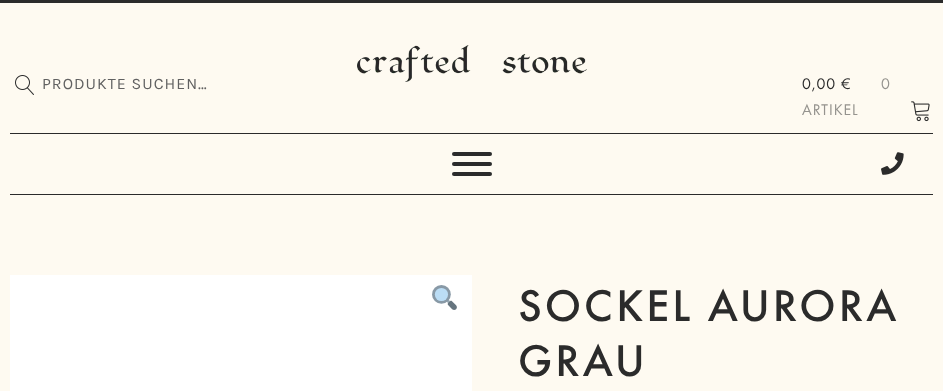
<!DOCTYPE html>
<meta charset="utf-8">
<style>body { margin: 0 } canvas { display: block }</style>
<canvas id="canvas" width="943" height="391"></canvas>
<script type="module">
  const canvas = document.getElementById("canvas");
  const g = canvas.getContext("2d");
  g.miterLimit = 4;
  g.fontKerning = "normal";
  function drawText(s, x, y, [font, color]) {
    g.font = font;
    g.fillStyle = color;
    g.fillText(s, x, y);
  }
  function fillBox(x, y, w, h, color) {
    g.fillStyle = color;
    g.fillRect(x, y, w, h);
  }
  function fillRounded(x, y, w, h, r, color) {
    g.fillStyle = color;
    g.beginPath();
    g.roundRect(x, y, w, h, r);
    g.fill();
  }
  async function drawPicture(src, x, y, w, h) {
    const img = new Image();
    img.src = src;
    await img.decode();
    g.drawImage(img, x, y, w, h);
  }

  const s1 = ["16px Karla", "#616161"];
  const s2 = ["16px 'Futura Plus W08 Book'", "#2B2B2B"];
  const s3 = ["16px 'Futura Plus W08 Book'", "#95938E"];
  const s4 = ["46px 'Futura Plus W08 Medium'", "#2B2B2B"];

  fillBox(0, 0, 943, 391, "#FEFAF1");
  fillBox(0, 0, 943, 3, "#2B2B2B");
  await drawPicture("pic1.png", 357, 45, 230, 37);
  await drawPicture("pic2.png", 15, 75, 19, 20);
  g.letterSpacing = "1px";
  drawText("PRODUKTE SUCHEN…", 42, 89, s1);
  drawText("0,00 €", 802, 89, s2);
  drawText("0", 881, 89, s3);
  drawText("ARTIKEL", 802, 115, s3);
  await drawPicture("pic3.png", 911, 101, 19, 21);
  fillBox(10, 133, 923, 1, "#2B2B2B");
  fillBox(10, 194, 923, 1, "#2B2B2B");
  fillRounded(452, 152, 40, 4, 2, "#2B2B2B");
  fillRounded(452, 162, 40, 4, 2, "#2B2B2B");
  fillRounded(452, 172, 40, 4, 2, "#2B2B2B");
  await drawPicture("pic4.png", 881, 152, 23, 23);
  fillBox(10, 275, 462, 116, "#FFFFFF");
  await drawPicture("pic5.png", 432, 285, 25, 25);
  g.letterSpacing = "3px";
  drawText("SOCKEL AURORA", 518, 321, s4);
  drawText("GRAU", 518, 376, s4);
</script>
